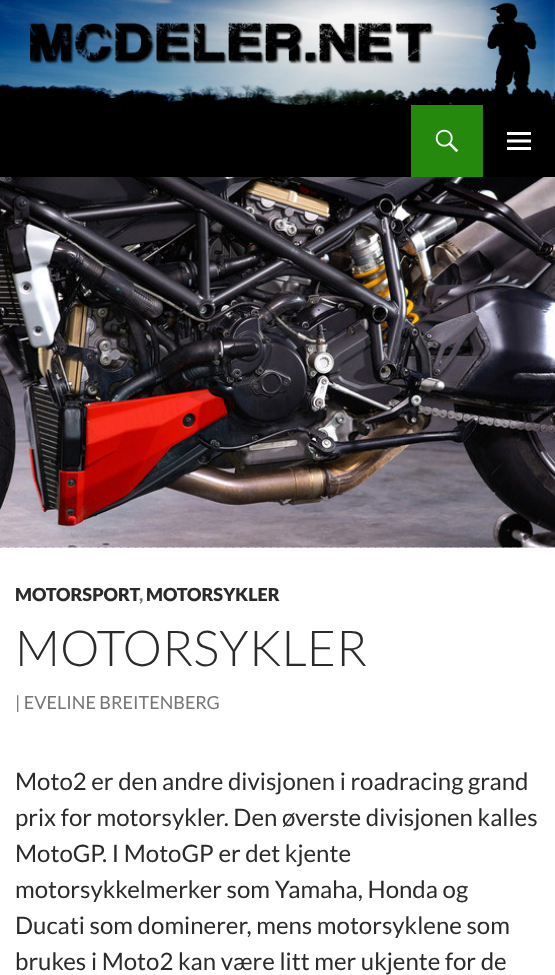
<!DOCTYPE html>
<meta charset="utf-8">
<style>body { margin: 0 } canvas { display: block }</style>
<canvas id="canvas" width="555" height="975"></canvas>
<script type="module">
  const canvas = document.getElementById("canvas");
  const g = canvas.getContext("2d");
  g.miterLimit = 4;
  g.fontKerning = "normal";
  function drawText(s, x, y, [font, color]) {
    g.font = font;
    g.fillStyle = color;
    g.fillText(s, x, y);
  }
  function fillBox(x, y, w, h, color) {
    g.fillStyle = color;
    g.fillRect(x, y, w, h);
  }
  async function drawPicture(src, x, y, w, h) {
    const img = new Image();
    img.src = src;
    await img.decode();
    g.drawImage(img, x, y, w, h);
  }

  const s1 = ["900 18px Lato", "#2B2B2B"];
  const s2 = ["900 18px Lato", "#767676"];
  const s3 = ["300 49.5px Lato", "#2B2B2B"];
  const s4 = ["18px Lato", "#767676"];
  const s5 = ["24px Lato", "#2B2B2B"];

  fillBox(0, 0, 555, 975, "#FFFFFF");
  await drawPicture("pic1.png", 0, 0, 555, 105);
  fillBox(0, 105, 555, 72, "#000000");
  fillBox(411, 105, 72, 72, "#24890D");
  await drawPicture("pic2.png", 435, 129, 24, 24);
  await drawPicture("pic3.png", 507, 132, 24, 18);
  fillBox(0, 547, 555, 1, "#B2B2B2");
  await drawPicture("pic4.png", 0, 547, 555, 1);
  await drawPicture("pic5.png", 0, 177, 555, 371);
  drawText("MOTORSPORT", 15, 601, s1);
  drawText("MOTORSYKLER", 146, 601, s1);
  drawText(",", 139, 601, s2);
  drawText("MOTORSYKLER", 15, 666, s3);
  drawText("| EVELINE BREITENBERG", 15, 709, s4);
  drawText("Moto2 er den andre divisjonen i roadracing grand", 15, 790, s5);
  drawText("prix for motorsykler. Den øverste divisjonen kalles", 15, 826, s5);
  drawText("MotoGP. I MotoGP er det kjente", 15, 862, s5);
  drawText("motorsykkelmerker som Yamaha, Honda og", 15, 898, s5);
  drawText("Ducati som dominerer, mens motorsyklene som", 15, 934, s5);
  drawText("brukes i Moto2 kan være litt mer ukjente for de", 15, 970, s5);
</script>
